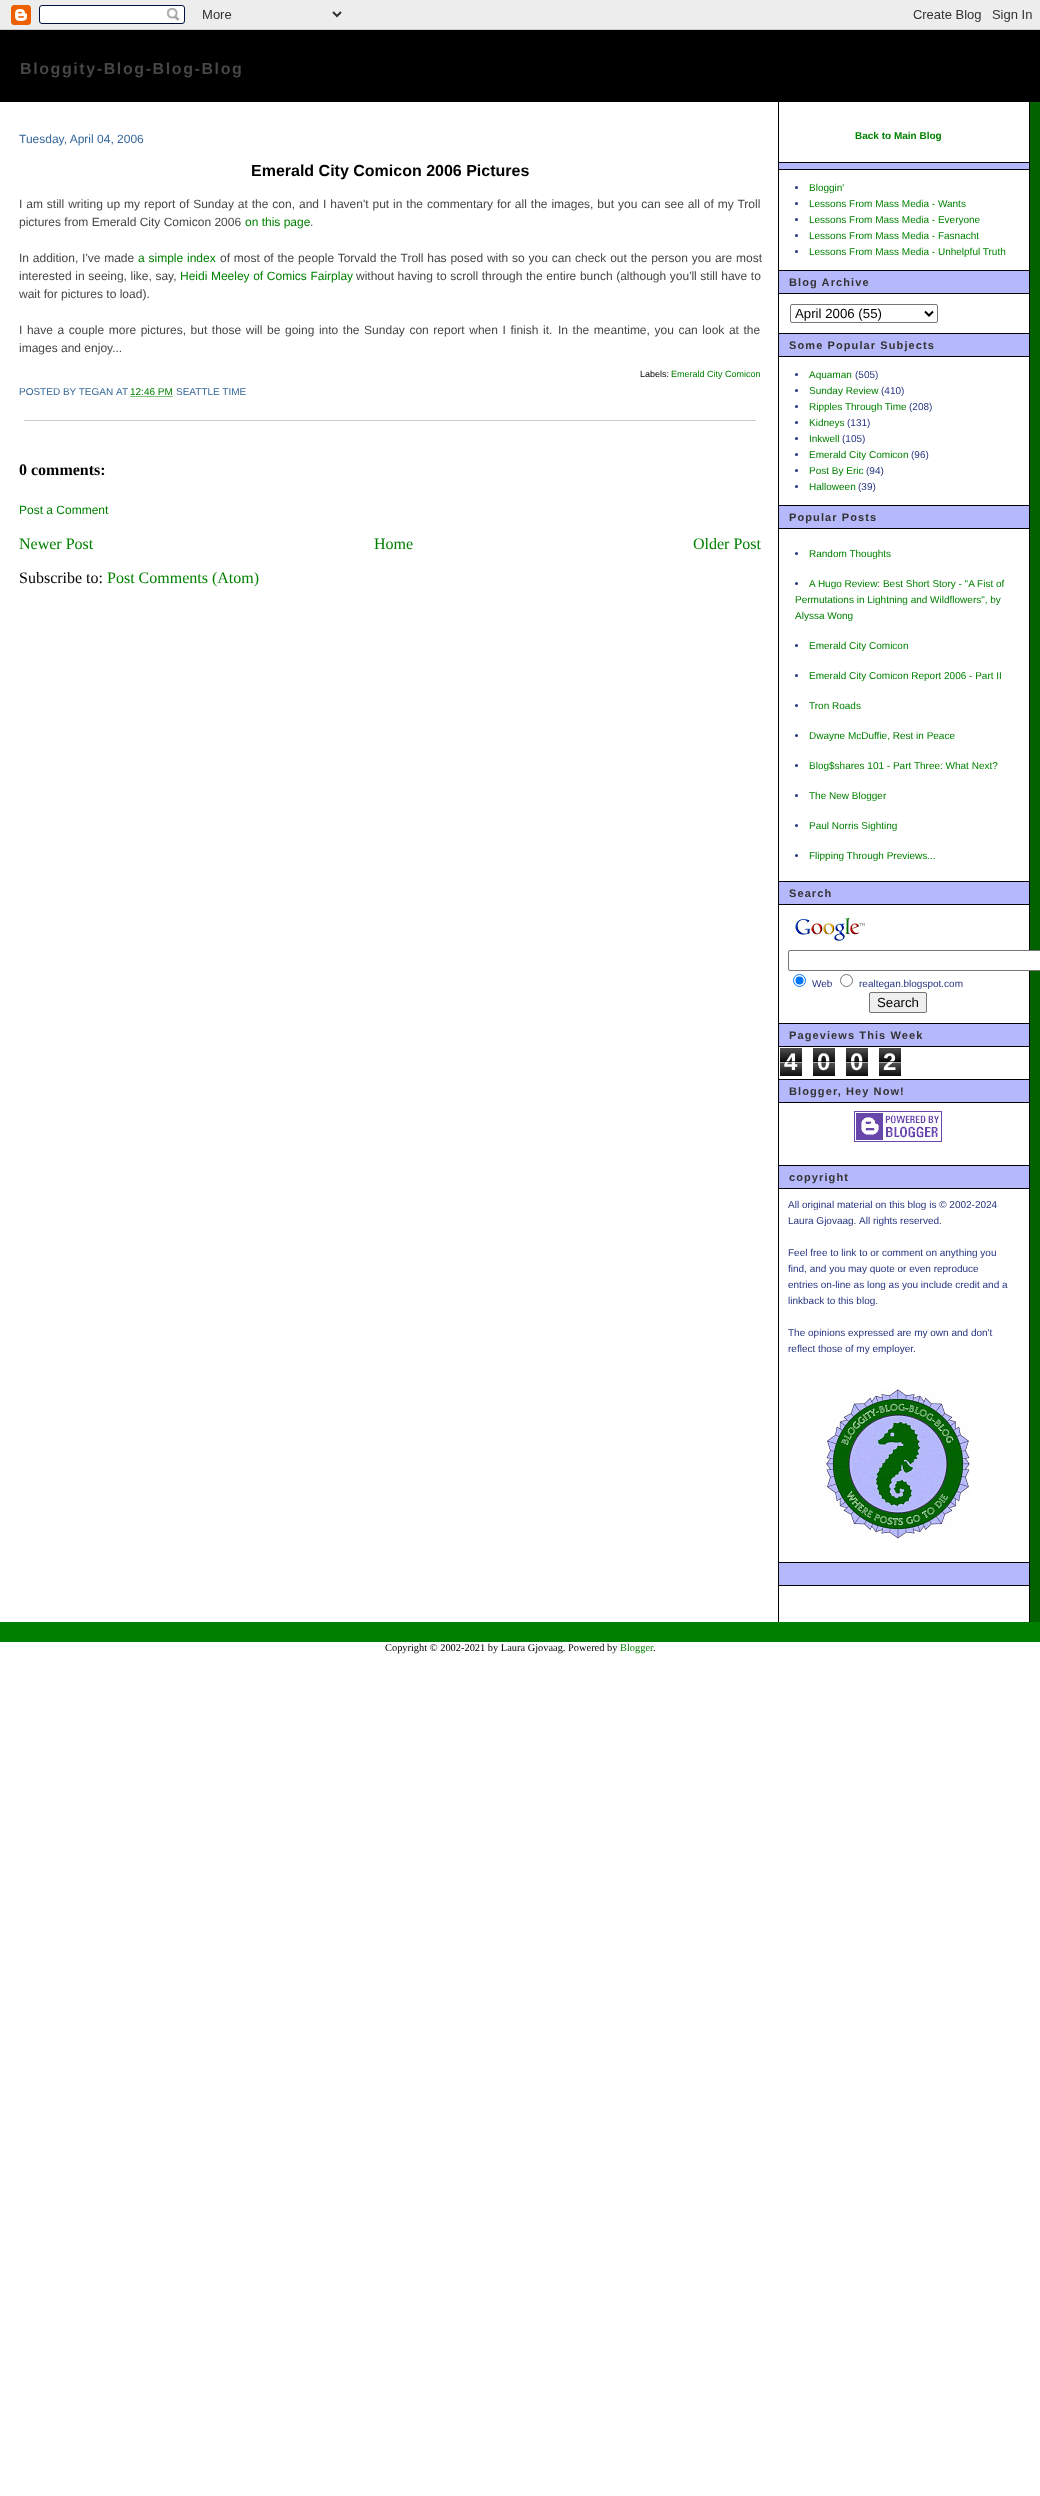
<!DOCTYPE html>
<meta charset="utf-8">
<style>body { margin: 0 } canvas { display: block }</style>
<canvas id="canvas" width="1040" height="2496"></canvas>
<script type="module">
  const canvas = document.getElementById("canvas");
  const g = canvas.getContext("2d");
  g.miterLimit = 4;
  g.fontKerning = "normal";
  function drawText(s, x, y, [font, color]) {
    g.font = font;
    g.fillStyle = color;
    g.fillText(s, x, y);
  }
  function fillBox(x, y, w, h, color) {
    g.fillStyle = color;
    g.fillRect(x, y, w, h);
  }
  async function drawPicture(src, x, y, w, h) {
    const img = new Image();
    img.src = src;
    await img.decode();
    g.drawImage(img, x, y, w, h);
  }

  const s1 = ["bold 16px Liberation Sans", "#464646"];
  const s2 = ["12px Liberation Sans", "#336699"];
  const s3 = ["bold 16px Liberation Sans", "#000000"];
  const s4 = ["12px Liberation Sans", "#464646"];
  const s5 = ["12px Liberation Sans", "#008000"];
  const s6 = ["9px Liberation Sans", "#000000"];
  const s7 = ["9px Liberation Sans", "#008000"];
  const s8 = ["10px Liberation Sans", "#336699"];
  const s9 = ["10px Liberation Sans", "#008000"];
  const s10 = ["bold 16px Liberation Serif", "#000000"];
  const s11 = ["16px Liberation Serif", "#008000"];
  const s12 = ["16px Liberation Serif", "#000000"];
  const s13 = ["bold 10px Liberation Sans", "#008000"];
  const s14 = ["bold 11px Liberation Sans", "#333333"];
  const s15 = ["13.25px Liberation Sans", "#000000"];
  const s16 = ["10px Liberation Sans", "#25347F"];
  const s17 = ["bold 24px Liberation Sans", "#FFFFFF"];
  const s18 = ["10.4px Liberation Serif", "#000000"];
  const s19 = ["10.4px Liberation Serif", "#008000"];

  fillBox(0, 0, 1040, 2496, "#FFFFFF");
  await drawPicture("pic1.png", 0, 0, 1040, 30);
  await drawPicture("pic2.png", 778, 102, 262, 1520);
  fillBox(0, 30, 1040, 72, "#000000");
  g.letterSpacing = "1.6px";
  drawText("Bloggity-Blog-Blog-Blog", 20, 74, s1);
  g.letterSpacing = "0px";
  drawText("Tuesday, April 04, 2006", 19, 143, s2);
  drawText("Emerald City Comicon 2006 Pictures", 251, 176, s3);
  g.wordSpacing = "0.6px";
  drawText("I am still writing up my report of Sunday at the con, and I haven't put in the commentary for all the images, but you can see all of my Troll", 19, 208, s4);
  g.wordSpacing = "0px";
  drawText("pictures from Emerald City Comicon 2006", 19, 226, s4);
  drawText("on this page", 245, 226, s5);
  drawText(".", 310, 226, s4);
  g.wordSpacing = "0.5px";
  drawText("In addition, I've made", 19, 262, s4);
  drawText("a simple index", 138, 262, s5);
  drawText("of most of the people Torvald the Troll has posed with so you can check out the person you are most", 220, 262, s4);
  g.wordSpacing = "0.25px";
  drawText("interested in seeing, like, say,", 19, 280, s4);
  drawText("Heidi Meeley of Comics Fairplay", 180, 280, s5);
  drawText("without having to scroll through the entire bunch (although you'll still have to", 356, 280, s4);
  g.wordSpacing = "0px";
  drawText("wait for pictures to load).", 19, 298, s4);
  g.wordSpacing = "1.25px";
  drawText("I have a couple more pictures, but those will be going into the Sunday con report when I finish it.", 19, 334, s4);
  drawText("In the meantime, you can look at the", 558, 334, s4);
  g.wordSpacing = "0px";
  drawText("images and enjoy...", 19, 352, s4);
  drawText("Labels:", 640, 377, s6);
  drawText("Emerald City Comicon", 671, 377, s7);
  drawText("POSTED BY TEGAN", 19, 395, s8);
  drawText("AT", 116, 395, s8);
  drawText("12:46 PM", 130, 395, s9);
  g.beginPath();
  g.moveTo(130.5, 396.5);
  g.lineTo(173, 396.5);
  g.strokeStyle = "#008000";
  g.setLineDash([1, 1]);
  g.stroke();
  drawText("SEATTLE TIME", 176, 395, s8);
  fillBox(24, 420, 732, 1, "#CCCCCC");
  drawText("0 comments:", 19, 475, s10);
  drawText("Post a Comment", 19, 514, s5);
  drawText("Newer Post", 19, 549, s11);
  drawText("Home", 374, 549, s11);
  drawText("Older Post", 693, 549, s11);
  drawText("Subscribe to:", 19, 583, s12);
  drawText("Post Comments (Atom)", 107, 583, s11);
  drawText("Back to Main Blog", 855, 139, s13);
  fillBox(779, 163, 250, 6, "#B6B8FC");
  fillBox(778, 162, 251, 1, "#000000");
  fillBox(778, 169, 251, 1, "#000000");
  g.fillStyle = "#25347F";
  g.beginPath();
  g.arc(796.5, 187.5, 1.5, 0, Math.PI * 2);
  g.fill();
  drawText("Bloggin'", 809, 191, s9);
  g.fillStyle = "#25347F";
  g.beginPath();
  g.arc(796.5, 203.5, 1.5, 0, Math.PI * 2);
  g.fill();
  drawText("Lessons From Mass Media - Wants", 809, 207, s9);
  g.fillStyle = "#25347F";
  g.beginPath();
  g.arc(796.5, 219.5, 1.5, 0, Math.PI * 2);
  g.fill();
  drawText("Lessons From Mass Media - Everyone", 809, 223, s9);
  g.fillStyle = "#25347F";
  g.beginPath();
  g.arc(796.5, 235.5, 1.5, 0, Math.PI * 2);
  g.fill();
  drawText("Lessons From Mass Media - Fasnacht", 809, 239, s9);
  g.fillStyle = "#25347F";
  g.beginPath();
  g.arc(796.5, 251.5, 1.5, 0, Math.PI * 2);
  g.fill();
  drawText("Lessons From Mass Media - Unhelpful Truth", 809, 255, s9);
  fillBox(779, 271, 250, 22, "#B6B8FC");
  fillBox(778, 270, 251, 1, "#000000");
  fillBox(778, 293, 251, 1, "#000000");
  g.letterSpacing = "1.1px";
  drawText("Blog Archive", 789, 286, s14);
  g.beginPath();
  g.roundRect(790.5, 304.5, 147, 18, 1.5);
  g.strokeStyle = "#767676";
  g.setLineDash([]);
  g.stroke();
  g.beginPath();
  g.moveTo(925, 311.5);
  g.lineTo(929, 315.5);
  g.lineTo(933, 311.5);
  g.strokeStyle = "#000000";
  g.lineWidth = 2;
  g.stroke();
  g.letterSpacing = "0px";
  drawText("April 2006 (55)", 795, 318, s15);
  fillBox(779, 334, 250, 22, "#B6B8FC");
  fillBox(778, 333, 251, 1, "#000000");
  fillBox(778, 356, 251, 1, "#000000");
  g.letterSpacing = "1.1px";
  drawText("Some Popular Subjects", 789, 349, s14);
  g.fillStyle = "#25347F";
  g.beginPath();
  g.arc(796.5, 374.5, 1.5, 0, Math.PI * 2);
  g.fill();
  g.letterSpacing = "0px";
  drawText("Aquaman", 809, 378, s9);
  drawText("(505)", 855, 378, s16);
  g.beginPath();
  g.arc(796.5, 390.5, 1.5, 0, Math.PI * 2);
  g.fill();
  drawText("Sunday Review", 809, 394, s9);
  drawText("(410)", 881, 394, s16);
  g.beginPath();
  g.arc(796.5, 406.5, 1.5, 0, Math.PI * 2);
  g.fill();
  drawText("Ripples Through Time", 809, 410, s9);
  drawText("(208)", 909, 410, s16);
  g.beginPath();
  g.arc(796.5, 422.5, 1.5, 0, Math.PI * 2);
  g.fill();
  drawText("Kidneys", 809, 426, s9);
  drawText("(131)", 847, 426, s16);
  g.beginPath();
  g.arc(796.5, 438.5, 1.5, 0, Math.PI * 2);
  g.fill();
  drawText("Inkwell", 809, 442, s9);
  drawText("(105)", 842, 442, s16);
  g.beginPath();
  g.arc(796.5, 454.5, 1.5, 0, Math.PI * 2);
  g.fill();
  drawText("Emerald City Comicon", 809, 458, s9);
  drawText("(96)", 911, 458, s16);
  g.beginPath();
  g.arc(796.5, 470.5, 1.5, 0, Math.PI * 2);
  g.fill();
  drawText("Post By Eric", 809, 474, s9);
  drawText("(94)", 866, 474, s16);
  g.beginPath();
  g.arc(796.5, 486.5, 1.5, 0, Math.PI * 2);
  g.fill();
  drawText("Halloween", 809, 490, s9);
  drawText("(39)", 858, 490, s16);
  fillBox(779, 506, 250, 22, "#B6B8FC");
  fillBox(778, 505, 251, 1, "#000000");
  fillBox(778, 528, 251, 1, "#000000");
  g.letterSpacing = "1.1px";
  drawText("Popular Posts", 789, 521, s14);
  g.fillStyle = "#25347F";
  g.beginPath();
  g.arc(796.5, 553.5, 1.5, 0, Math.PI * 2);
  g.fill();
  g.letterSpacing = "0px";
  drawText("Random Thoughts", 809, 557, s9);
  g.fillStyle = "#25347F";
  g.beginPath();
  g.arc(796.5, 583.5, 1.5, 0, Math.PI * 2);
  g.fill();
  drawText("A Hugo Review: Best Short Story - \"A Fist of", 809, 587, s9);
  drawText("Permutations in Lightning and Wildflowers\", by", 795, 603, s9);
  drawText("Alyssa Wong", 795, 619, s9);
  g.fillStyle = "#25347F";
  g.beginPath();
  g.arc(796.5, 645.5, 1.5, 0, Math.PI * 2);
  g.fill();
  drawText("Emerald City Comicon", 809, 649, s9);
  g.fillStyle = "#25347F";
  g.beginPath();
  g.arc(796.5, 675.5, 1.5, 0, Math.PI * 2);
  g.fill();
  drawText("Emerald City Comicon Report 2006 - Part II", 809, 679, s9);
  g.fillStyle = "#25347F";
  g.beginPath();
  g.arc(796.5, 705.5, 1.5, 0, Math.PI * 2);
  g.fill();
  drawText("Tron Roads", 809, 709, s9);
  g.fillStyle = "#25347F";
  g.beginPath();
  g.arc(796.5, 735.5, 1.5, 0, Math.PI * 2);
  g.fill();
  drawText("Dwayne McDuffie, Rest in Peace", 809, 739, s9);
  g.fillStyle = "#25347F";
  g.beginPath();
  g.arc(796.5, 765.5, 1.5, 0, Math.PI * 2);
  g.fill();
  drawText("Blog$shares 101 - Part Three: What Next?", 809, 769, s9);
  g.fillStyle = "#25347F";
  g.beginPath();
  g.arc(796.5, 795.5, 1.5, 0, Math.PI * 2);
  g.fill();
  drawText("The New Blogger", 809, 799, s9);
  g.fillStyle = "#25347F";
  g.beginPath();
  g.arc(796.5, 825.5, 1.5, 0, Math.PI * 2);
  g.fill();
  drawText("Paul Norris Sighting", 809, 829, s9);
  g.fillStyle = "#25347F";
  g.beginPath();
  g.arc(796.5, 855.5, 1.5, 0, Math.PI * 2);
  g.fill();
  drawText("Flipping Through Previews...", 809, 859, s9);
  fillBox(779, 882, 250, 22, "#B6B8FC");
  fillBox(778, 881, 251, 1, "#000000");
  fillBox(778, 904, 251, 1, "#000000");
  g.letterSpacing = "1.1px";
  drawText("Search", 789, 897, s14);
  await drawPicture("pic3.png", 795, 918, 70, 23);
  g.fillStyle = "#FFFFFF";
  g.beginPath();
  g.roundRect(788.5, 950.5, 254, 20, 1.5);
  g.fill();
  g.strokeStyle = "#767676";
  g.lineWidth = 1;
  g.stroke();
  g.beginPath();
  g.arc(799.5, 980.5, 6, 0, Math.PI * 2);
  g.strokeStyle = "#0075FF";
  g.stroke();
  g.fillStyle = "#0075FF";
  g.beginPath();
  g.arc(799.5, 980.5, 4, 0, Math.PI * 2);
  g.fill();
  g.letterSpacing = "0px";
  drawText("Web", 812, 987, s16);
  g.beginPath();
  g.arc(846.5, 980.5, 6, 0, Math.PI * 2);
  g.strokeStyle = "#767676";
  g.stroke();
  drawText("realtegan.blogspot.com", 859, 987, s16);
  g.fillStyle = "#EFEFEF";
  g.beginPath();
  g.roundRect(869.5, 992.5, 57, 20, 1.5);
  g.fill();
  g.stroke();
  drawText("Search", 877, 1007, s15);
  fillBox(779, 1024, 250, 22, "#B6B8FC");
  fillBox(778, 1023, 251, 1, "#000000");
  fillBox(778, 1046, 251, 1, "#000000");
  g.letterSpacing = "1.1px";
  drawText("Pageviews This Week", 789, 1039, s14);
  await drawPicture("pic4.png", 780, 1048, 22, 28);
  g.letterSpacing = "0px";
  drawText("4", 784, 1070, s17);
  fillBox(780, 1061, 22, 1, "rgba(0, 0, 0, 0.65)");
  fillBox(780, 1062, 22, 1, "rgba(255, 255, 255, 0.65)");
  await drawPicture("pic4.png", 813, 1048, 22, 28);
  drawText("0", 817, 1070, s17);
  fillBox(813, 1061, 22, 1, "rgba(0, 0, 0, 0.65)");
  fillBox(813, 1062, 22, 1, "rgba(255, 255, 255, 0.65)");
  await drawPicture("pic4.png", 846, 1048, 22, 28);
  drawText("0", 850, 1070, s17);
  fillBox(846, 1061, 22, 1, "rgba(0, 0, 0, 0.65)");
  fillBox(846, 1062, 22, 1, "rgba(255, 255, 255, 0.65)");
  await drawPicture("pic4.png", 879, 1048, 22, 28);
  drawText("2", 883, 1070, s17);
  fillBox(879, 1061, 22, 1, "rgba(0, 0, 0, 0.65)");
  fillBox(879, 1062, 22, 1, "rgba(255, 255, 255, 0.65)");
  fillBox(779, 1080, 250, 22, "#B6B8FC");
  fillBox(778, 1079, 251, 1, "#000000");
  fillBox(778, 1102, 251, 1, "#000000");
  g.letterSpacing = "1.1px";
  drawText("Blogger, Hey Now!", 789, 1095, s14);
  await drawPicture("pic5.png", 854, 1111, 88, 31);
  fillBox(779, 1166, 250, 22, "#B6B8FC");
  fillBox(778, 1165, 251, 1, "#000000");
  fillBox(778, 1188, 251, 1, "#000000");
  drawText("copyright", 789, 1181, s14);
  g.letterSpacing = "0px";
  drawText("All original material on this blog is © 2002-2024", 788, 1208, s16);
  drawText("Laura Gjovaag.", 788, 1224, s16);
  drawText("All rights reserved.", 859, 1224, s16);
  drawText("Feel free to link to or comment on anything you", 788, 1256, s16);
  drawText("find, and you may quote or even reproduce", 788, 1272, s16);
  drawText("entries on-line as long as you include credit and a", 788, 1288, s16);
  drawText("linkback to this blog.", 788, 1304, s16);
  drawText("The opinions expressed are my own and don't", 788, 1336, s16);
  drawText("reflect those of my employer.", 788, 1352, s16);
  await drawPicture("pic6.png", 825, 1389, 146, 150);
  fillBox(779, 1563, 250, 22, "#B6B8FC");
  fillBox(778, 1562, 251, 1, "#000000");
  fillBox(778, 1585, 251, 1, "#000000");
  fillBox(0, 1622, 1040, 20, "#008000");
  drawText("Copyright © 2002-2021 by Laura Gjovaag. Powered by", 385, 1651, s18);
  drawText("Blogger", 620, 1651, s19);
  drawText(".", 653, 1651, s18);
</script>
